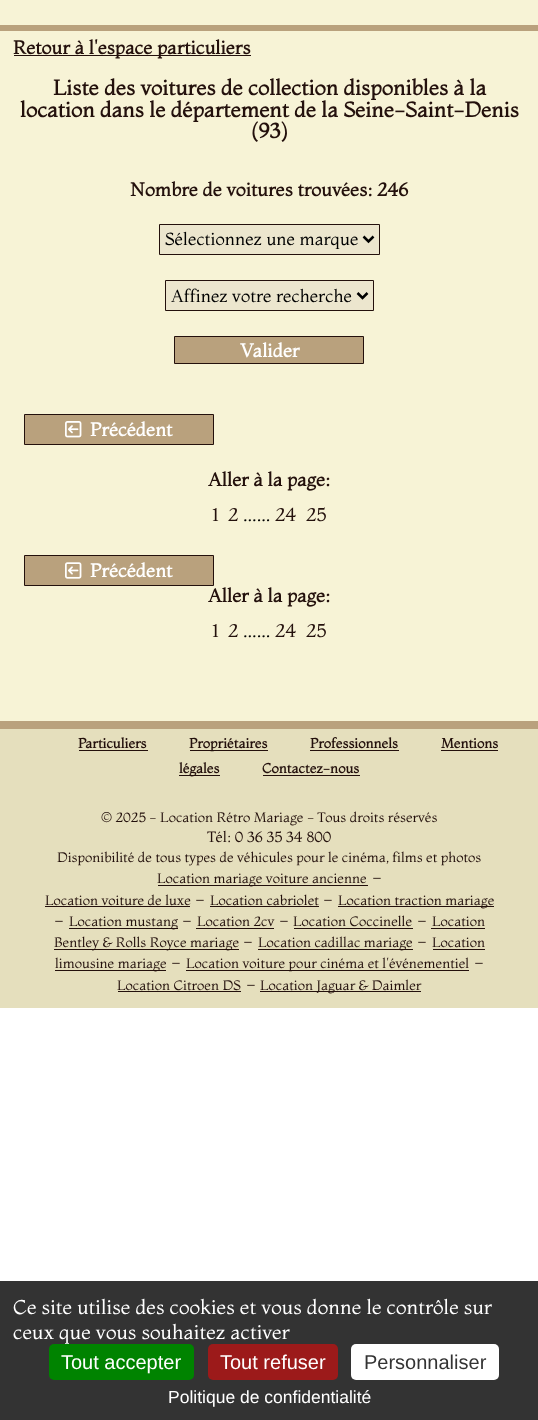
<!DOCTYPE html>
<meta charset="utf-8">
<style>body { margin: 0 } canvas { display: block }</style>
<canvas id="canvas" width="538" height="1420"></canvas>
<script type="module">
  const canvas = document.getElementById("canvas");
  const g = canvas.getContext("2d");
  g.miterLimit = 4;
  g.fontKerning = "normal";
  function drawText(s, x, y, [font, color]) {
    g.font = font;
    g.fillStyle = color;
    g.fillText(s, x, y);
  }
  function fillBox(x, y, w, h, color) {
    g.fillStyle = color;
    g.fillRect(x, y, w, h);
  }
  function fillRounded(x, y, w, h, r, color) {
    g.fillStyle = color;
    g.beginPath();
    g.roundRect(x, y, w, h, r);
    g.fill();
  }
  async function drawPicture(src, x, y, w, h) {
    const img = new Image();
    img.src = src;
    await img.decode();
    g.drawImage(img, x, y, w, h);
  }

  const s1 = ["bold 18.75px Montaga", "#23100C"];
  const s2 = ["bold 21.25px Montaga", "#23100C"];
  const s3 = ["17.5px Montaga", "#000000"];
  const s4 = ["bold 18.75px Montaga", "#FFFFFF"];
  const s5 = ["18.75px Montaga", "#23100C"];
  const s6 = ["20px Montaga", "#000000"];
  const s7 = ["bold 13.75px Montaga", "#23100C"];
  const s8 = ["13.75px Montaga", "#23100C"];
  const s9 = ["15px Montaga", "#23100C"];
  const s10 = ["20px Montaga", "#FFFFFF"];
  const s11 = ["20px Liberation Sans", "#FFFFFF"];
  const s12 = ["20px Liberation Sans", "#333333"];
  const s13 = ["17.5px Liberation Sans", "#FFFFFF"];

  fillBox(0, 0, 538, 1420, "#FFFFFF");
  fillBox(0, 0, 538, 25, "#F7F3D6");
  fillBox(0, 25, 538, 6, "#B9A17D");
  fillBox(0, 31, 538, 690, "#F7F3D6");
  fillBox(14, 55, 237, 1, "#23100C");
  drawText("Retour à l'espace particuliers", 13, 54, s1);
  drawText("Liste des voitures de collection disponibles à la", 53, 95, s2);
  drawText("location dans le département de la Seine-Saint-Denis", 20, 117, s2);
  drawText("(93)", 251, 138, s2);
  drawText("Nombre de voitures trouvées: 246", 130, 196, s1);
  g.fillStyle = "#ECE6CE";
  g.beginPath();
  g.rect(159.5, 224.5, 220, 30);
  g.fill();
  g.strokeStyle = "#23100C";
  g.stroke();
  g.beginPath();
  g.moveTo(363.5, 236.5);
  g.lineTo(368.5, 241.5);
  g.lineTo(373.5, 236.5);
  g.strokeStyle = "#000000";
  g.lineWidth = 2.5;
  g.stroke();
  drawText("Sélectionnez une marque", 165, 245, s3);
  g.fillStyle = "#ECE6CE";
  g.beginPath();
  g.rect(165.5, 280.5, 208, 30);
  g.fill();
  g.strokeStyle = "#23100C";
  g.lineWidth = 1;
  g.stroke();
  g.beginPath();
  g.moveTo(357.5, 293);
  g.lineTo(362.5, 298);
  g.lineTo(367.5, 293);
  g.strokeStyle = "#000000";
  g.lineWidth = 2.5;
  g.stroke();
  drawText("Affinez votre recherche", 171, 302, s3);
  g.fillStyle = "#B9A17D";
  g.beginPath();
  g.rect(174.5, 336.5, 189, 27);
  g.fill();
  g.strokeStyle = "#23100C";
  g.lineWidth = 1;
  g.stroke();
  drawText("Valider", 240, 357, s4);
  g.fillStyle = "#B9A17D";
  g.beginPath();
  g.rect(24.5, 414.5, 189, 30);
  g.fill();
  g.stroke();
  await drawPicture("pic1.png", 65, 421, 17, 17);
  drawText("Précédent", 90, 436, s4);
  drawText("Aller à la page:", 208, 486, s1);
  drawText("1", 212, 521, s5);
  drawText("2", 228, 521, s5);
  drawText("......", 243, 521, s6);
  drawText("24", 275, 521, s5);
  drawText("25", 306, 521, s5);
  g.fillStyle = "#B9A17D";
  g.beginPath();
  g.rect(24.5, 555.5, 189, 30);
  g.fill();
  g.stroke();
  await drawPicture("pic2.png", 65, 562, 17, 17);
  drawText("Précédent", 90, 577, s4);
  drawText("Aller à la page:", 208, 602, s1);
  drawText("1", 212, 637, s5);
  drawText("2", 228, 637, s5);
  drawText("......", 243, 637, s6);
  drawText("24", 275, 637, s5);
  drawText("25", 306, 637, s5);
  fillBox(0, 721, 538, 8, "#B9A17D");
  fillBox(0, 729, 538, 279, "#E5DFBD");
  drawText("Particuliers", 78, 748, s7);
  fillBox(79, 750, 69, 1, "#23100C");
  fillBox(190, 750, 78, 1, "#23100C");
  drawText("Propriétaires", 189, 748, s7);
  drawText("Professionnels", 310, 748, s7);
  fillBox(310, 750, 89, 1, "#23100C");
  drawText("Mentions", 441, 748, s7);
  fillBox(441, 750, 57, 1, "#23100C");
  fillBox(179, 775, 41, 1, "#23100C");
  drawText("légales", 179, 773, s7);
  drawText("Contactez-nous", 262, 773, s7);
  fillBox(263, 775, 97, 1, "#23100C");
  drawText("© 2025 - Location Rétro Mariage - Tous droits réservés", 101, 822, s8);
  drawText("Tél: 0 36 35 34 800", 207, 842, s9);
  drawText("Disponibilité de tous types de véhicules pour le cinéma, films et photos", 57, 862, s8);
  fillBox(158, 885, 210, 1, "#23100C");
  drawText("Location mariage voiture ancienne", 157, 883, s8);
  drawText("-", 372, 883, s5);
  drawText("Location voiture de luxe", 45, 905, s8);
  fillBox(45, 906, 145, 1, "#23100C");
  drawText("-", 195, 905, s5);
  drawText("Location cabriolet", 210, 905, s8);
  fillBox(210, 906, 109, 1, "#23100C");
  drawText("-", 323, 905, s5);
  fillBox(338, 906, 156, 1, "#23100C");
  drawText("Location traction mariage", 338, 905, s8);
  drawText("-", 54, 926, s5);
  fillBox(69, 928, 109, 1, "#23100C");
  drawText("Location mustang", 69, 926, s8);
  drawText("-", 182, 926, s5);
  drawText("Location 2cv", 197, 926, s8);
  fillBox(196, 928, 78, 1, "#23100C");
  drawText("-", 279, 926, s5);
  drawText("Location Coccinelle", 293, 926, s8);
  fillBox(294, 928, 119, 1, "#23100C");
  drawText("-", 417, 926, s5);
  drawText("Location", 432, 926, s8);
  fillBox(431, 928, 54, 1, "#23100C");
  fillBox(54, 949, 185, 1, "#23100C");
  drawText("Bentley & Rolls Royce mariage", 54, 947, s8);
  drawText("-", 243, 947, s5);
  fillBox(258, 949, 155, 1, "#23100C");
  drawText("Location cadillac mariage", 258, 947, s8);
  drawText("-", 417, 947, s5);
  drawText("Location", 432, 947, s8);
  fillBox(433, 949, 52, 1, "#23100C");
  fillBox(55, 970, 111, 1, "#23100C");
  drawText("limousine mariage", 55, 968, s8);
  drawText("-", 171, 968, s5);
  fillBox(186, 970, 283, 1, "#23100C");
  drawText("Location voiture pour cinéma et l'événementiel", 186, 968, s8);
  drawText("-", 474, 968, s5);
  drawText("Location Citroen DS", 117, 990, s8);
  fillBox(118, 991, 123, 1, "#23100C");
  drawText("-", 246, 990, s5);
  fillBox(260, 991, 161, 1, "#23100C");
  drawText("Location Jaguar & Daimler", 260, 990, s8);
  fillBox(0, 1281, 538, 139, "#333333");
  drawText("Ce site utilise des cookies et vous donne le contrôle sur", 13, 1314, s10);
  drawText("ceux que vous souhaitez activer", 13, 1339, s10);
  fillRounded(49, 1344, 145, 36, 5, "#008300");
  drawText("Tout accepter", 61, 1369, s11);
  fillRounded(208, 1344, 130, 36, 5, "#9C1A1A");
  drawText("Tout refuser", 220, 1369, s11);
  fillRounded(351, 1344, 148, 36, 5, "#FFFFFF");
  drawText("Personnaliser", 364, 1369, s12);
  drawText("Politique de confidentialité", 168, 1403, s13);
</script>
